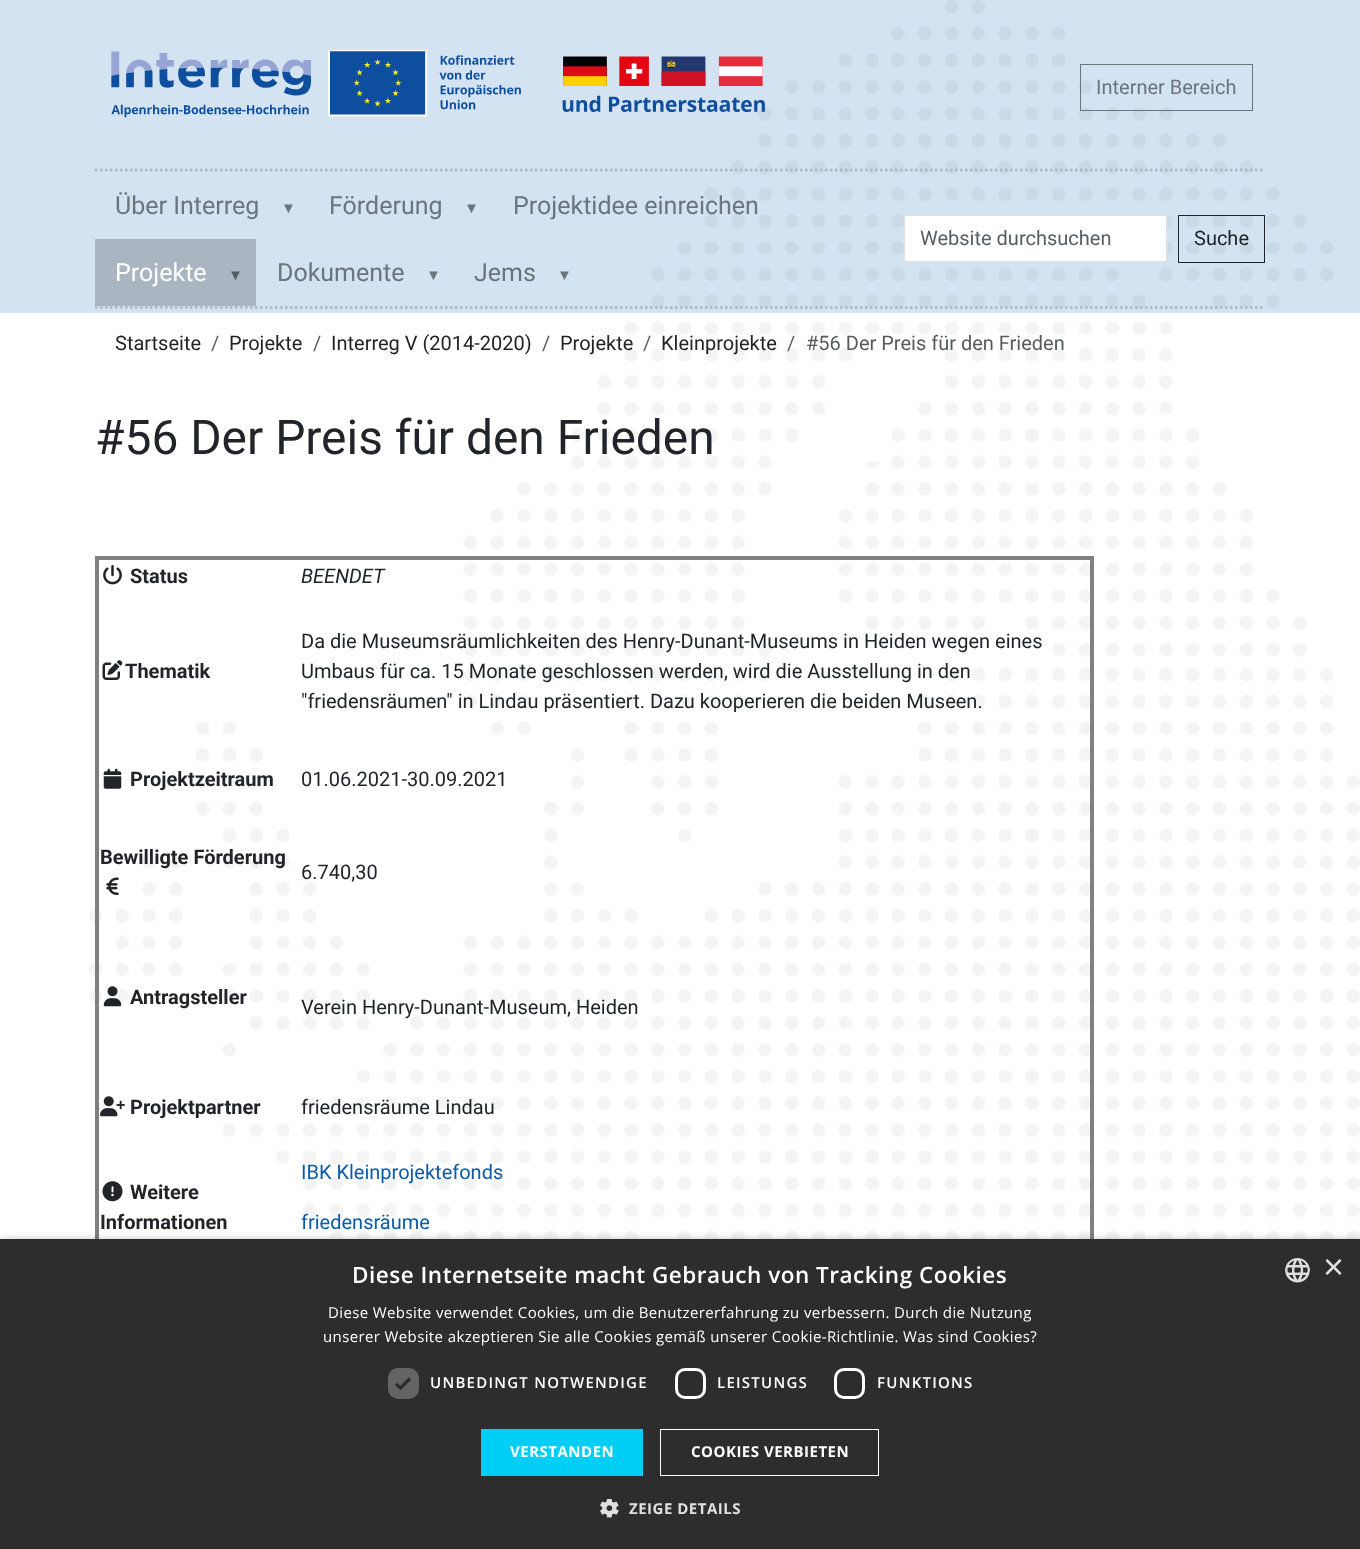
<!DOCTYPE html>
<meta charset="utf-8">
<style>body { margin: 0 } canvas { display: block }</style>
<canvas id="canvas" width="1360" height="1549"></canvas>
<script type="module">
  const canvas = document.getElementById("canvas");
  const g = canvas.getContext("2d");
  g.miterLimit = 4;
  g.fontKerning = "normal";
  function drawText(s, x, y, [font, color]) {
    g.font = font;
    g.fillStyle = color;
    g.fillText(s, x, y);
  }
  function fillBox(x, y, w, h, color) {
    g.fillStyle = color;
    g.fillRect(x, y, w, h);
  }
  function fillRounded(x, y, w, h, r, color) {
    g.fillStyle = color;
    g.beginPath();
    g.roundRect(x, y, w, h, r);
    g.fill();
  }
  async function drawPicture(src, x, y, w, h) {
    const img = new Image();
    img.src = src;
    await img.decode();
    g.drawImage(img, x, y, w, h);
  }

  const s1 = ["20px Roboto", "#6C757D"];
  const s2 = ["25px Roboto", "#6C757D"];
  const s3 = ["15px Liberation Sans", "#6C757D"];
  const s4 = ["25px Roboto", "#FFFFFF"];
  const s5 = ["15px Liberation Sans", "#565E64"];
  const s6 = ["20px Roboto", "#565E64"];
  const s7 = ["20px Roboto", "#212529"];
  const s8 = ["20px Roboto", "#585B5E"];
  const s9 = ["47.9px Roboto", "#212529"];
  const s10 = ["bold 20px Roboto", "#212529"];
  const s11 = ["italic 20px Roboto", "#212529"];
  const s12 = ["20px Roboto", "#0B5AAA"];
  const s13 = ["600 22.5px Open Sans", "#FFFFFF"];
  const s14 = ["36px Liberation Sans", "#E0E0E0"];
  const s15 = ["15px Open Sans", "#FFFFFF"];
  const s16 = ["600 15px Open Sans", "#FFFFFF"];
  const s17 = ["bold 15px Open Sans", "#FFFFFF"];
  const s18 = ["bold 15px Open Sans", "#E0E0E0"];

  fillBox(0, 0, 1360, 1549, "#FFFFFF");
  fillBox(0, 0, 1360, 313, "#D3E3F1");
  fillBox(95, 239, 161, 67, "#A9B6C1");
  await drawPicture("pic1.png", 89, 0, 1271, 1239);
  await drawPicture("pic2.png", 111, 50, 654, 68);
  g.strokeStyle = "#6C757D";
  g.strokeRect(1080.5, 64.5, 172, 46);
  drawText("Interner Bereich", 1096, 94, s1);
  g.beginPath();
  g.moveTo(95, 170);
  g.lineTo(1265, 170);
  g.strokeStyle = "#ADB5BD";
  g.lineWidth = 2.5;
  g.setLineDash([2.5, 2.5]);
  g.stroke();
  g.beginPath();
  g.moveTo(95, 307.5);
  g.lineTo(1265, 307.5);
  g.stroke();
  drawText("Über Interreg", 115, 214, s2);
  drawText("▼", 281, 213, s3);
  drawText("Förderung", 329, 214, s2);
  drawText("▼", 464, 213, s3);
  drawText("Projektidee einreichen", 513, 214, s2);
  drawText("Projekte", 115, 281, s4);
  drawText("▼", 228, 280, s5);
  drawText("Dokumente", 277, 281, s2);
  drawText("▼", 426, 280, s3);
  drawText("Jems", 474, 281, s2);
  drawText("▼", 557, 280, s3);
  fillBox(905, 216, 261, 45, "#FFFFFF");
  g.strokeStyle = "#DEE2E6";
  g.lineWidth = 1;
  g.setLineDash([]);
  g.strokeRect(904.5, 215.5, 263, 47);
  drawText("Website durchsuchen", 920, 245, s6);
  g.strokeStyle = "#212529";
  g.strokeRect(1178.5, 215.5, 86, 47);
  drawText("Suche", 1194, 245, s7);
  drawText("Startseite", 115, 350, s7);
  drawText("/", 211, 350, s6);
  drawText("Projekte", 229, 350, s7);
  drawText("/", 313, 350, s6);
  drawText("Interreg V (2014-2020)", 331, 350, s7);
  drawText("/", 542, 350, s6);
  drawText("Projekte", 560, 350, s7);
  drawText("/", 643, 350, s6);
  drawText("Kleinprojekte", 661, 350, s7);
  drawText("/", 787, 350, s8);
  drawText("#56 Der Preis für den Frieden", 806, 350, s8);
  drawText("#56 Der Preis für den Frieden", 95, 454, s9);
  fillBox(95, 556, 999, 4, "#808080");
  fillBox(1090, 556, 4, 683, "#808080");
  fillBox(95, 556, 4, 683, "#808080");
  await drawPicture("pic3.png", 103, 565, 19, 20);
  drawText("Status", 130, 583, s10);
  drawText("BEENDET", 301, 583, s11);
  await drawPicture("pic4.png", 102, 660, 21, 20);
  drawText("Thematik", 125, 678, s10);
  drawText("Da die Museumsräumlichkeiten des Henry-Dunant-Museums in Heiden wegen eines", 301, 648, s7);
  drawText("Umbaus für ca. 15 Monate geschlossen werden, wird die Ausstellung in den", 301, 678, s7);
  drawText("\"friedensräumen\" in Lindau präsentiert. Dazu kooperieren die beiden Museen.", 301, 708, s7);
  await drawPicture("pic5.png", 103, 768, 19, 21);
  drawText("Projektzeitraum", 130, 786, s10);
  drawText("01.06.2021-30.09.2021", 301, 786, s7);
  drawText("Bewilligte Förderung", 100, 864, s10);
  await drawPicture("pic6.png", 106, 877, 13, 18);
  drawText("6.740,30", 301, 879, s7);
  await drawPicture("pic7.png", 103, 986, 19, 21);
  drawText("Antragsteller", 130, 1004, s10);
  drawText("Verein Henry-Dunant-Museum, Heiden", 301, 1014, s7);
  await drawPicture("pic8.png", 100, 1096, 25, 21);
  drawText("Projektpartner", 130, 1114, s10);
  drawText("friedensräume Lindau", 301, 1114, s7);
  await drawPicture("pic9.png", 102, 1181, 21, 21);
  drawText("Weitere", 130, 1199, s10);
  drawText("Informationen", 100, 1229, s10);
  drawText("IBK Kleinprojektefonds", 301, 1179, s12);
  drawText("friedensräume", 301, 1229, s12);
  g.fillStyle = "rgba(0, 0, 0, 0.35)";
  g.filter = "blur(5px)";
  g.beginPath();
  g.rect(1, 1241, 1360, 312);
  g.fill();
  g.filter = "none";
  fillBox(0, 1239, 1360, 310, "#2D2D2D");
  g.letterSpacing = "0.5px";
  drawText("Diese Internetseite macht Gebrauch von Tracking Cookies", 352, 1283, s13);
  await drawPicture("pic10.png", 1285, 1258, 25, 25);
  g.letterSpacing = "0px";
  drawText("×", 1323, 1279, s14);
  g.letterSpacing = "0.38px";
  drawText("Diese Website verwendet Cookies, um die Benutzererfahrung zu verbessern. Durch die Nutzung", 328, 1318, s15);
  drawText("unserer Website akzeptieren Sie alle Cookies gemäß unserer Cookie-Richtlinie. Was sind Cookies?", 323, 1342, s15);
  fillRounded(388, 1368, 31, 31, 10, "#646464");
  g.beginPath();
  g.moveTo(396, 1384);
  g.lineTo(400.5, 1388);
  g.lineTo(410, 1378.5);
  g.strokeStyle = "#2D2D2D";
  g.lineWidth = 3.3;
  g.stroke();
  g.letterSpacing = "1.25px";
  drawText("UNBEDINGT NOTWENDIGE", 430, 1388, s16);
  g.beginPath();
  g.roundRect(676.5, 1369.5, 28, 28, 8.5);
  g.strokeStyle = "#FFFFFF";
  g.lineWidth = 3;
  g.stroke();
  drawText("LEISTUNGS", 717, 1388, s16);
  g.beginPath();
  g.roundRect(835.5, 1369.5, 28, 28, 8.5);
  g.stroke();
  drawText("FUNKTIONS", 877, 1388, s16);
  fillBox(481, 1429, 162, 47, "#00CEF5");
  g.letterSpacing = "0.5px";
  drawText("VERSTANDEN", 510, 1457, s17);
  g.lineWidth = 1;
  g.strokeRect(660.5, 1429.5, 218, 46);
  drawText("COOKIES VERBIETEN", 691, 1457, s17);
  await drawPicture("pic11.png", 600, 1499, 19, 19);
  drawText("ZEIGE DETAILS", 629, 1514, s18);
</script>
